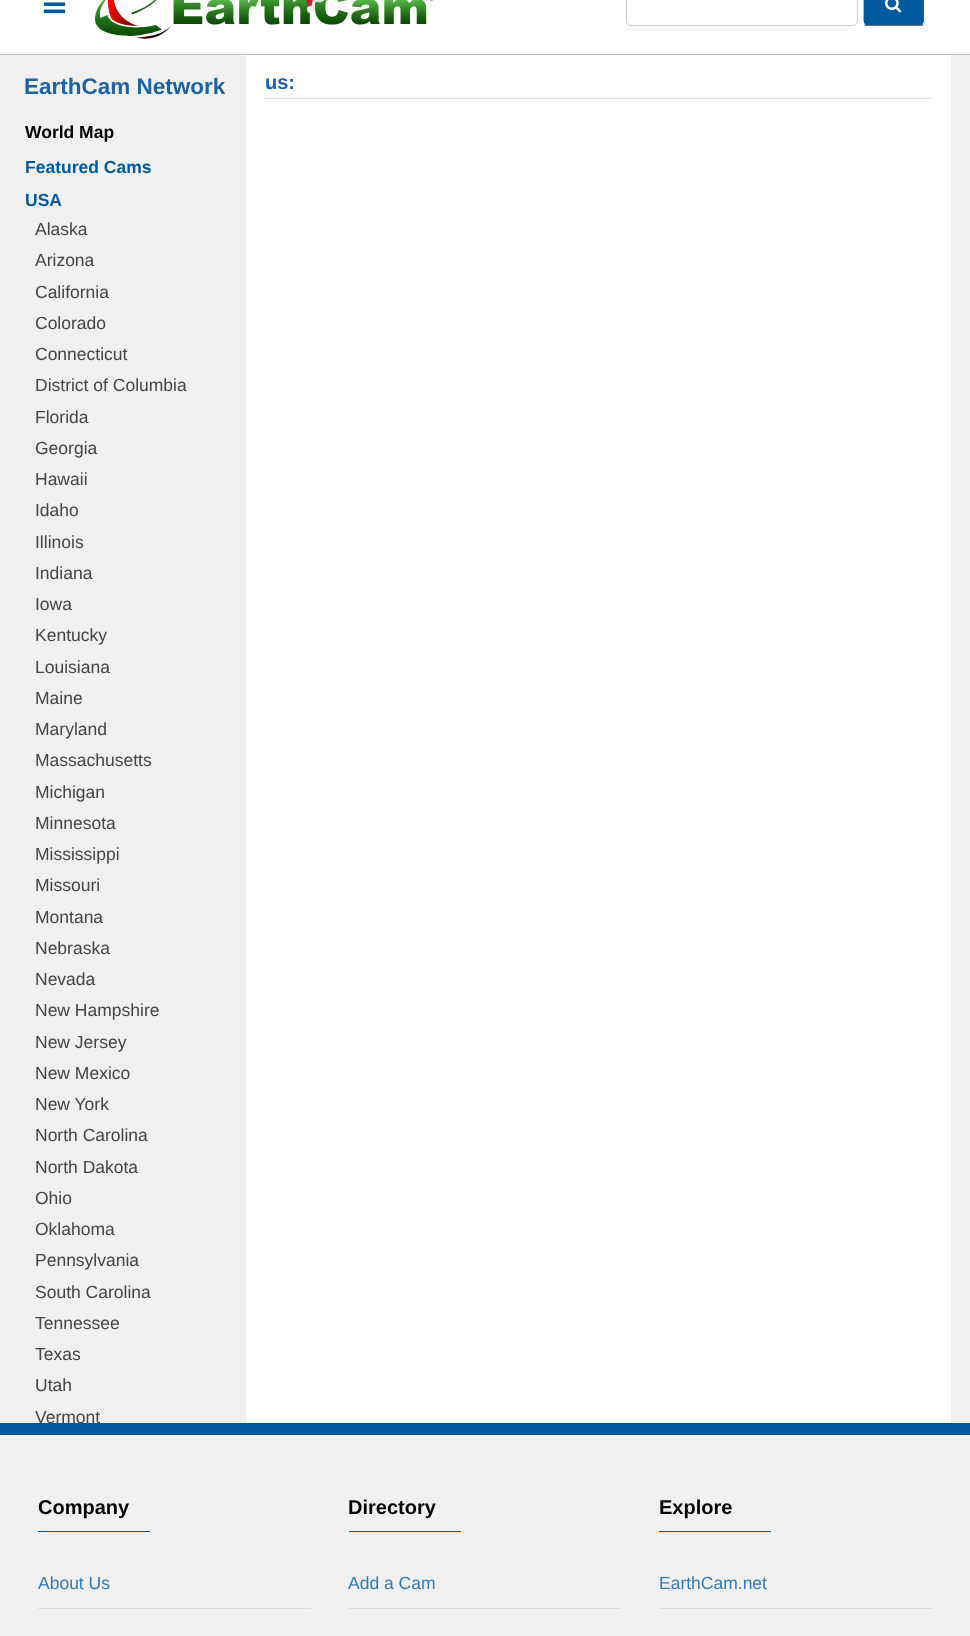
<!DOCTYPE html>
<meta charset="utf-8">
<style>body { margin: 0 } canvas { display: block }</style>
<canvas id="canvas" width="970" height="1636"></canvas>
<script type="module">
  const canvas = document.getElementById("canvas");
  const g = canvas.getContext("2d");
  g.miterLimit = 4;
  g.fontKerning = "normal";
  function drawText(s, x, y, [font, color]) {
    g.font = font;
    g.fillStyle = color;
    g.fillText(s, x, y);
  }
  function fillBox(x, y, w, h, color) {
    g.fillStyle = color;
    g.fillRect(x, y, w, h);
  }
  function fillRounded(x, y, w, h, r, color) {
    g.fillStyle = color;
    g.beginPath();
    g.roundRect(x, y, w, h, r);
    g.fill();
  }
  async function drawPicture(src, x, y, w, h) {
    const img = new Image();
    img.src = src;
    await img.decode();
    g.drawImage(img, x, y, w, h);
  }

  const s1 = ["bold 22.5px Liberation Sans", "#1D63A2"];
  const s2 = ["bold 17.5px Liberation Sans", "#000000"];
  const s3 = ["bold 17.5px Liberation Sans", "#00589D"];
  const s4 = ["17.5px Liberation Sans", "#444444"];
  const s5 = ["bold 20px Liberation Sans", "#1D63A2"];
  const s6 = ["bold 20px Liberation Sans", "#000000"];
  const s7 = ["17.5px Liberation Sans", "#337AB7"];

  fillBox(0, 0, 970, 1636, "#F0F0F0");
  fillBox(0, 0, 970, 54, "#FFFFFF");
  fillBox(0, 54, 970, 1, "#C3C3C3");
  await drawPicture("pic1.png", 43, 2, 23, 12);
  await drawPicture("pic2.png", 95, 0, 338, 39);
  g.beginPath();
  g.roundRect(626.5, -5.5, 231, 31, 4.5);
  g.strokeStyle = "#CCCCCC";
  g.stroke();
  fillRounded(863, -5, 62, 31, 5, "#00589D");
  g.beginPath();
  g.moveTo(923, -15.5);
  g.bezierCurveTo(924, -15, 924.5, -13.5, 924.5, -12.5);
  g.lineTo(924.5, 21);
  g.bezierCurveTo(924.5, 22.5, 924, 23.5, 923, 24.5);
  g.strokeStyle = "#FFFFFF";
  g.lineWidth = 1.2;
  g.stroke();
  g.beginPath();
  g.moveTo(923, 24.5);
  g.bezierCurveTo(922.5, 25, 921, 25.5, 920, 25.5);
  g.lineTo(867.5, 25.5);
  g.bezierCurveTo(866.5, 25.5, 865, 25, 864.5, 24.5);
  g.strokeStyle = "#6C757D";
  g.stroke();
  g.beginPath();
  g.moveTo(864.5, 24.5);
  g.bezierCurveTo(863.5, 23.5, 863, 22.5, 863, 21);
  g.lineTo(863, -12.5);
  g.bezierCurveTo(863, -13.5, 863.5, -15, 864.5, -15.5);
  g.strokeStyle = "#FFFFFF";
  g.stroke();
  await drawPicture("pic3.png", 885, 0, 17, 13);
  fillBox(246, 55, 705, 1368, "#FFFFFF");
  drawText("EarthCam Network", 24, 94, s1);
  drawText("World Map", 25, 138, s2);
  drawText("Featured Cams", 25, 173, s3);
  drawText("USA", 25, 206, s3);
  drawText("Alaska", 35, 235, s4);
  drawText("Arizona", 35, 266, s4);
  drawText("California", 35, 298, s4);
  drawText("Colorado", 35, 329, s4);
  drawText("Connecticut", 35, 360, s4);
  drawText("District of Columbia", 35, 391, s4);
  drawText("Florida", 35, 423, s4);
  drawText("Georgia", 35, 454, s4);
  drawText("Hawaii", 35, 485, s4);
  drawText("Idaho", 35, 516, s4);
  drawText("Illinois", 35, 548, s4);
  drawText("Indiana", 35, 579, s4);
  drawText("Iowa", 35, 610, s4);
  drawText("Kentucky", 35, 641, s4);
  drawText("Louisiana", 35, 673, s4);
  drawText("Maine", 35, 704, s4);
  drawText("Maryland", 35, 735, s4);
  drawText("Massachusetts", 35, 766, s4);
  drawText("Michigan", 35, 798, s4);
  drawText("Minnesota", 35, 829, s4);
  drawText("Mississippi", 35, 860, s4);
  drawText("Missouri", 35, 891, s4);
  drawText("Montana", 35, 923, s4);
  drawText("Nebraska", 35, 954, s4);
  drawText("Nevada", 35, 985, s4);
  drawText("New Hampshire", 35, 1016, s4);
  drawText("New Jersey", 35, 1048, s4);
  drawText("New Mexico", 35, 1079, s4);
  drawText("New York", 35, 1110, s4);
  drawText("North Carolina", 35, 1141, s4);
  drawText("North Dakota", 35, 1173, s4);
  drawText("Ohio", 35, 1204, s4);
  drawText("Oklahoma", 35, 1235, s4);
  drawText("Pennsylvania", 35, 1266, s4);
  drawText("South Carolina", 35, 1298, s4);
  drawText("Tennessee", 35, 1329, s4);
  drawText("Texas", 35, 1360, s4);
  drawText("Utah", 35, 1391, s4);
  g.save();
  g.beginPath();
  g.rect(19, 114, 227, 1309);
  g.clip();
  drawText("Vermont", 35, 1423, s4);
  g.restore();
  fillBox(265, 98, 668, 1, "#DDDDDD");
  drawText("us:", 265, 89, s5);
  fillBox(0, 1423, 970, 12, "#00589D");
  drawText("Company", 38, 1514, s6);
  fillBox(38, 1531, 112, 1, "#00589D");
  drawText("About Us", 38, 1589, s7);
  fillBox(38, 1608, 273, 1, "#DDDDDD");
  drawText("Directory", 348, 1514, s6);
  fillBox(349, 1531, 112, 1, "#00589D");
  drawText("Add a Cam", 348, 1589, s7);
  fillBox(349, 1608, 272, 1, "#DDDDDD");
  drawText("Explore", 659, 1514, s6);
  fillBox(659, 1531, 112, 1, "#00589D");
  drawText("EarthCam.net", 659, 1589, s7);
  fillBox(659, 1608, 274, 1, "#DDDDDD");
</script>
